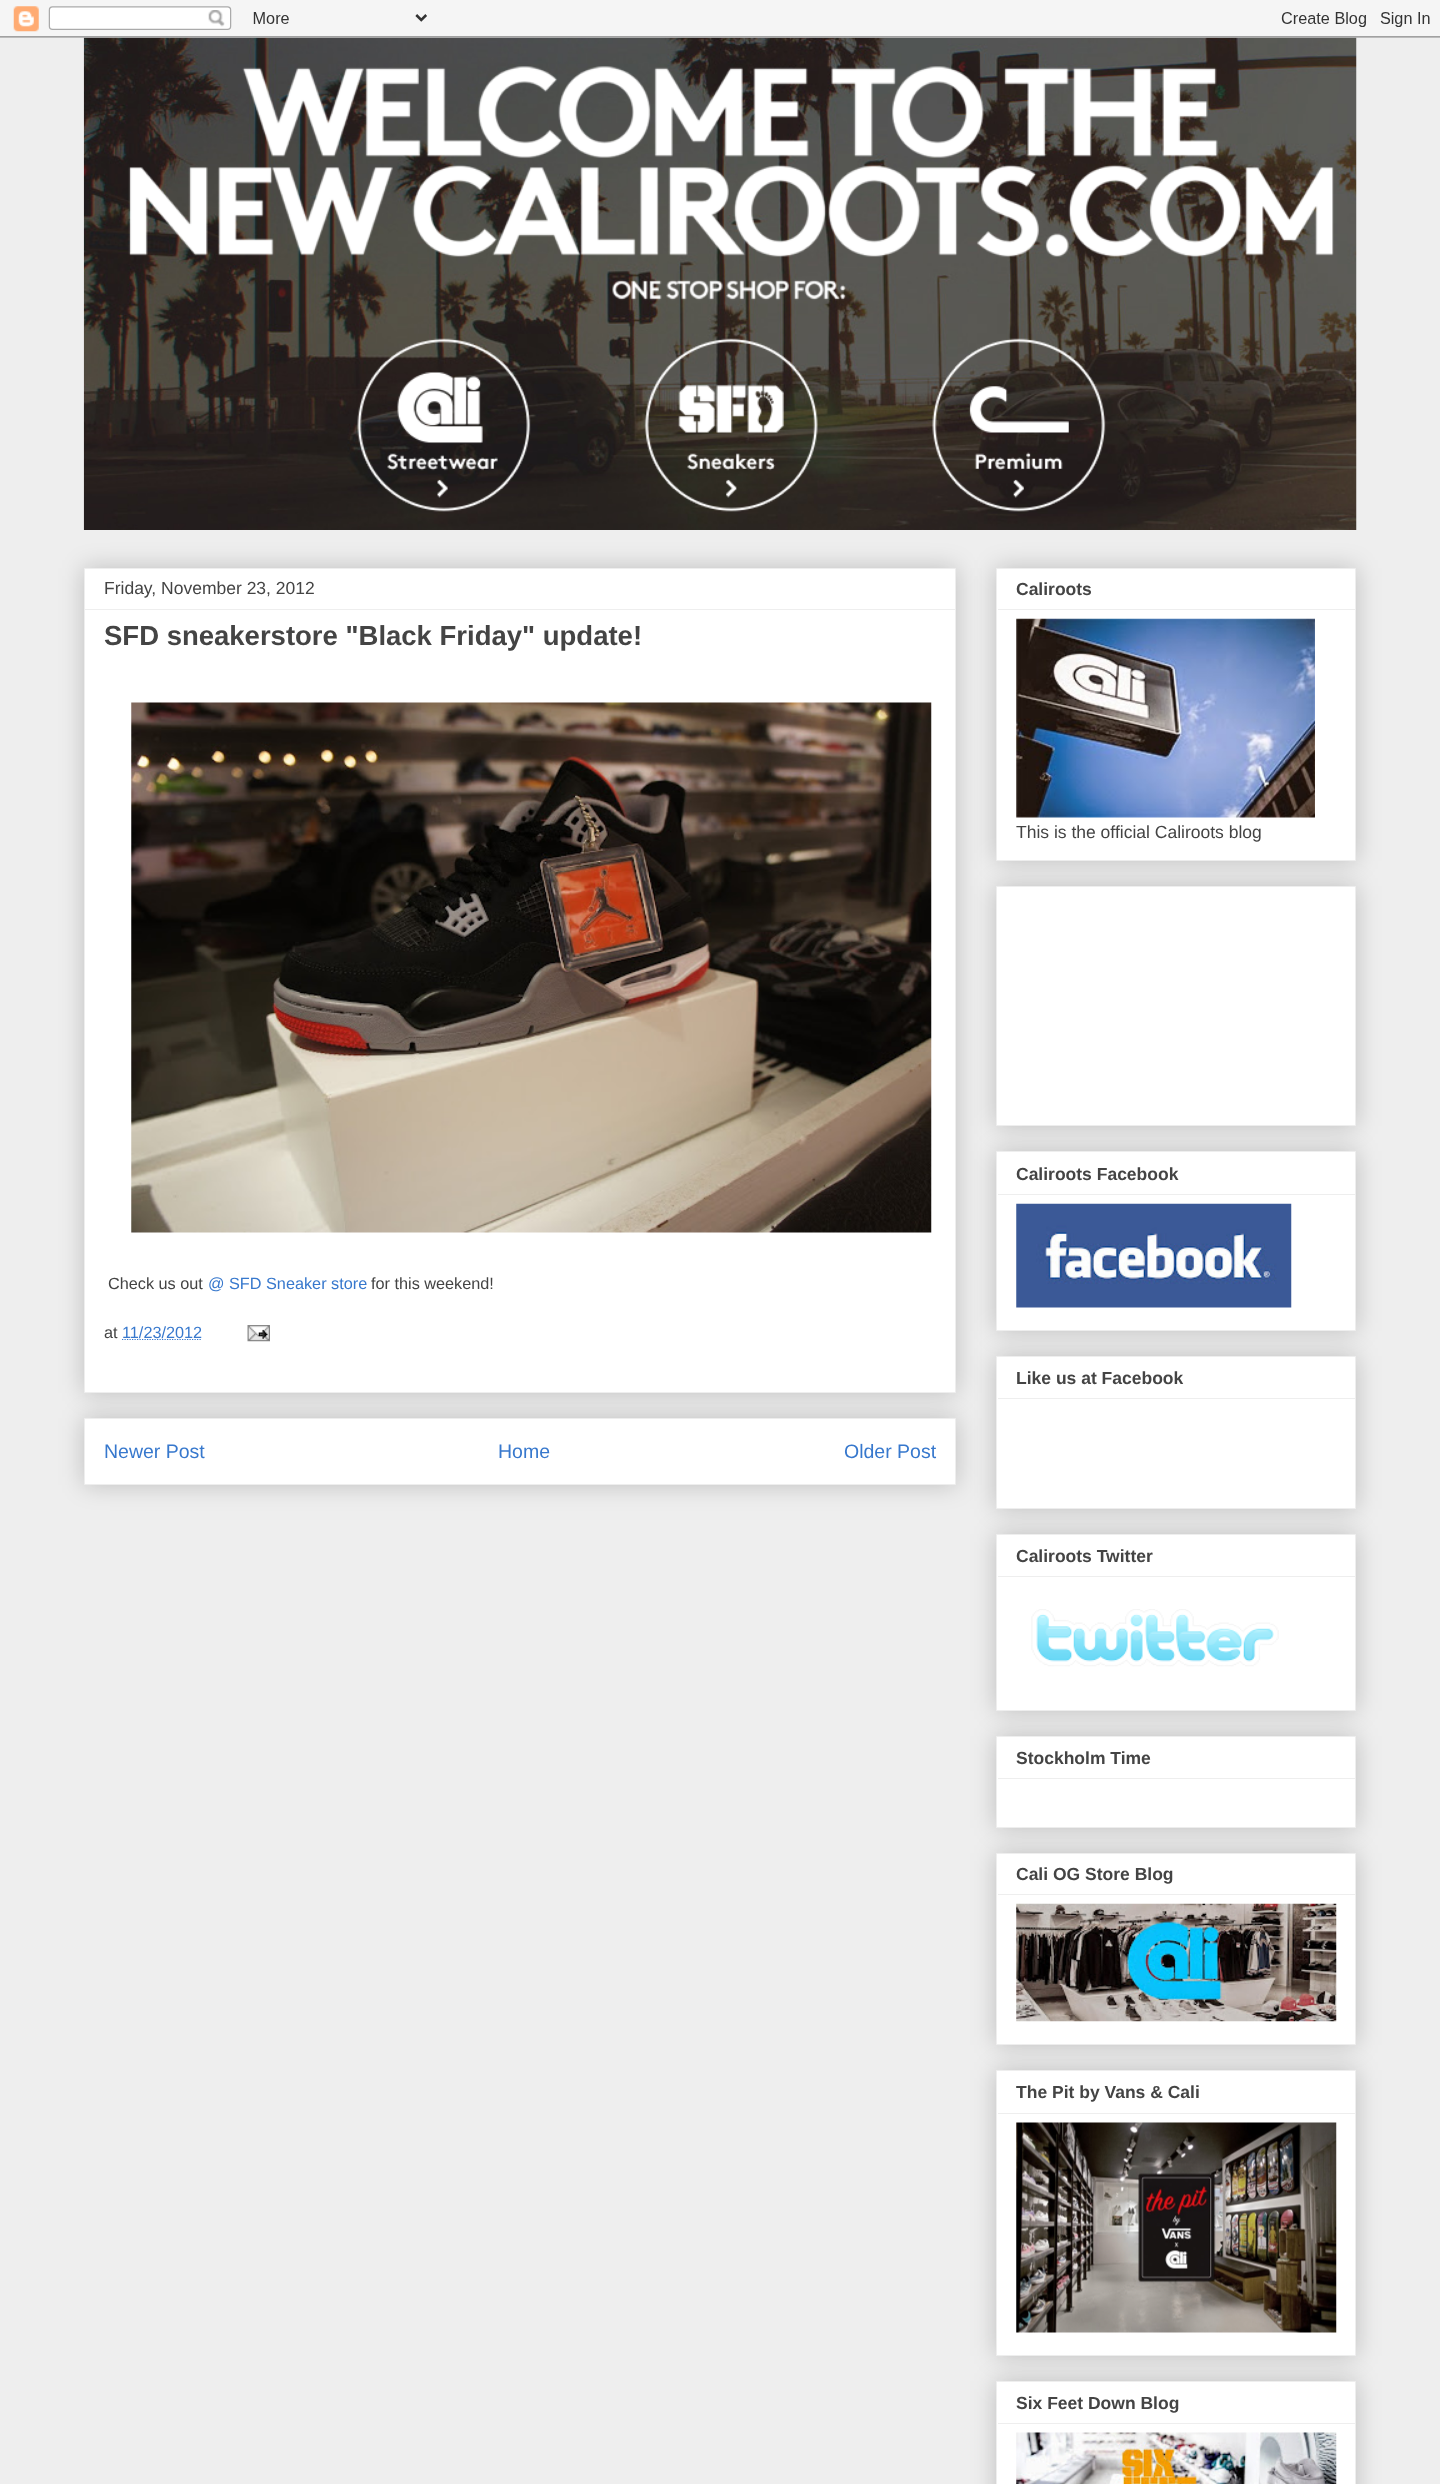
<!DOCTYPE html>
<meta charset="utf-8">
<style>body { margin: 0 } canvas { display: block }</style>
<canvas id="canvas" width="1440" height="2484"></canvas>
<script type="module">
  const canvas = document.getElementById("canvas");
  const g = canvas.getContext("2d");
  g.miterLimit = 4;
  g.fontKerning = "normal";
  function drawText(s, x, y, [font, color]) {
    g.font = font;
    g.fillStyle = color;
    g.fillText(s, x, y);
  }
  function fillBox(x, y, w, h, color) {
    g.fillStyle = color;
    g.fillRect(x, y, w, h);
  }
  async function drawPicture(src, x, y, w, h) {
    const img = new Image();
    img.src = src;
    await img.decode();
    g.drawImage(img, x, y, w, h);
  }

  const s1 = ["17.5px Liberation Sans", "#444444"];
  const s2 = ["bold 27.5px Liberation Sans", "#444444"];
  const s3 = ["16.25px Liberation Sans", "#444444"];
  const s4 = ["16.25px Liberation Sans", "#3778CD"];
  const s5 = ["19.5px Liberation Sans", "#3778CD"];
  const s6 = ["bold 17.5px Liberation Sans", "#444444"];

  fillBox(0, 0, 1440, 2484, "#EEEEEE");
  await drawPicture("pic2.png", 83, 37, 1274, 493);
  await drawPicture("pic1.png", 0, 0, 1440, 38);
  g.fillStyle = "rgba(0, 0, 0, 0.2)";
  g.filter = "blur(12.5px)";
  g.beginPath();
  g.rect(84, 1418, 872, 67);
  g.fill();
  g.filter = "none";
  g.fillStyle = "#FFFFFF";
  g.beginPath();
  g.rect(84.5, 1418.5, 871, 66);
  g.fill();
  g.strokeStyle = "#EEEEEE";
  g.stroke();
  g.fillStyle = "rgba(0, 0, 0, 0.2)";
  g.filter = "blur(12.5px)";
  g.beginPath();
  g.rect(84, 568, 872, 825);
  g.fill();
  g.filter = "none";
  g.fillStyle = "#FFFFFF";
  g.beginPath();
  g.rect(84.5, 568.5, 871, 824);
  g.fill();
  g.stroke();
  drawText("Friday, November 23, 2012", 104, 594, s1);
  fillBox(85, 609, 870, 1, "#EEEEEE");
  drawText("SFD sneakerstore \"Black Friday\" update!", 104, 645, s2);
  await drawPicture("pic3.png", 131, 702, 801, 531);
  drawText("Check us out", 108, 1289, s3);
  drawText("@ SFD Sneaker store", 208, 1289, s4);
  drawText("for this weekend!", 371, 1289, s3);
  drawText("at", 104, 1338, s3);
  g.beginPath();
  g.moveTo(122, 1339.5);
  g.lineTo(202, 1339.5);
  g.strokeStyle = "#3778CD";
  g.lineWidth = 1.2;
  g.setLineDash([1.25, 1.25]);
  g.stroke();
  drawText("11/23/2012", 122, 1338, s4);
  await drawPicture("pic4.png", 247, 1325, 23, 17);
  drawText("Newer Post", 104, 1458, s5);
  drawText("Home", 498, 1458, s5);
  drawText("Older Post", 844, 1458, s5);
  g.fillStyle = "rgba(0, 0, 0, 0.2)";
  g.filter = "blur(12.5px)";
  g.beginPath();
  g.rect(996, 568, 360, 293);
  g.fill();
  g.filter = "none";
  g.fillStyle = "#FFFFFF";
  g.beginPath();
  g.rect(996.5, 568.5, 359, 292);
  g.fill();
  g.strokeStyle = "#EEEEEE";
  g.lineWidth = 1;
  g.setLineDash([]);
  g.stroke();
  drawText("Caliroots", 1016, 595, s6);
  fillBox(998, 609, 357, 1, "#EEEEEE");
  await drawPicture("pic5.png", 1016, 618, 299, 200);
  drawText("This is the official Caliroots blog", 1016, 838, s1);
  g.fillStyle = "rgba(0, 0, 0, 0.2)";
  g.filter = "blur(12.5px)";
  g.beginPath();
  g.rect(996, 886, 360, 240);
  g.fill();
  g.filter = "none";
  g.fillStyle = "#FFFFFF";
  g.beginPath();
  g.rect(996.5, 886.5, 359, 239);
  g.fill();
  g.stroke();
  g.fillStyle = "rgba(0, 0, 0, 0.2)";
  g.filter = "blur(12.5px)";
  g.beginPath();
  g.rect(996, 1151, 360, 180);
  g.fill();
  g.filter = "none";
  g.fillStyle = "#FFFFFF";
  g.beginPath();
  g.rect(996.5, 1151.5, 359, 179);
  g.fill();
  g.stroke();
  drawText("Caliroots Facebook", 1016, 1180, s6);
  fillBox(998, 1194, 357, 1, "#EEEEEE");
  await drawPicture("pic6.png", 1016, 1203, 276, 105);
  g.fillStyle = "rgba(0, 0, 0, 0.2)";
  g.filter = "blur(12.5px)";
  g.beginPath();
  g.rect(996, 1356, 360, 153);
  g.fill();
  g.filter = "none";
  g.fillStyle = "#FFFFFF";
  g.beginPath();
  g.rect(996.5, 1356.5, 359, 152);
  g.fill();
  g.stroke();
  drawText("Like us at Facebook", 1016, 1384, s6);
  fillBox(998, 1398, 357, 1, "#EEEEEE");
  g.fillStyle = "rgba(0, 0, 0, 0.2)";
  g.filter = "blur(12.5px)";
  g.beginPath();
  g.rect(996, 1534, 360, 177);
  g.fill();
  g.filter = "none";
  g.fillStyle = "#FFFFFF";
  g.beginPath();
  g.rect(996.5, 1534.5, 359, 176);
  g.fill();
  g.stroke();
  drawText("Caliroots Twitter", 1016, 1562, s6);
  fillBox(998, 1576, 357, 1, "#EEEEEE");
  await drawPicture("pic7.png", 1031, 1609, 248, 58);
  g.fillStyle = "rgba(0, 0, 0, 0.2)";
  g.filter = "blur(12.5px)";
  g.beginPath();
  g.rect(996, 1736, 360, 92);
  g.fill();
  g.filter = "none";
  g.fillStyle = "#FFFFFF";
  g.beginPath();
  g.rect(996.5, 1736.5, 359, 91);
  g.fill();
  g.stroke();
  drawText("Stockholm Time", 1016, 1764, s6);
  fillBox(998, 1778, 357, 1, "#EEEEEE");
  g.fillStyle = "rgba(0, 0, 0, 0.2)";
  g.filter = "blur(12.5px)";
  g.beginPath();
  g.rect(996, 1853, 360, 192);
  g.fill();
  g.filter = "none";
  g.fillStyle = "#FFFFFF";
  g.beginPath();
  g.rect(996.5, 1853.5, 359, 191);
  g.fill();
  g.stroke();
  drawText("Cali OG Store Blog", 1016, 1880, s6);
  fillBox(998, 1894, 357, 1, "#EEEEEE");
  await drawPicture("pic8.png", 1016, 1903, 321, 119);
  g.fillStyle = "rgba(0, 0, 0, 0.2)";
  g.filter = "blur(12.5px)";
  g.beginPath();
  g.rect(996, 2070, 360, 286);
  g.fill();
  g.filter = "none";
  g.fillStyle = "#FFFFFF";
  g.beginPath();
  g.rect(996.5, 2070.5, 359, 285);
  g.fill();
  g.stroke();
  drawText("The Pit by Vans & Cali", 1016, 2098, s6);
  fillBox(998, 2113, 357, 1, "#EEEEEE");
  await drawPicture("pic9.png", 1016, 2122, 321, 211);
  g.fillStyle = "rgba(0, 0, 0, 0.2)";
  g.filter = "blur(12.5px)";
  g.beginPath();
  g.rect(996, 2381, 360, 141);
  g.fill();
  g.filter = "none";
  g.fillStyle = "#FFFFFF";
  g.beginPath();
  g.rect(996.5, 2381.5, 359, 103);
  g.fill();
  g.stroke();
  drawText("Six Feet Down Blog", 1016, 2409, s6);
  fillBox(998, 2423, 357, 1, "#EEEEEE");
  await drawPicture("pic10.png", 1016, 2432, 321, 52);
</script>
